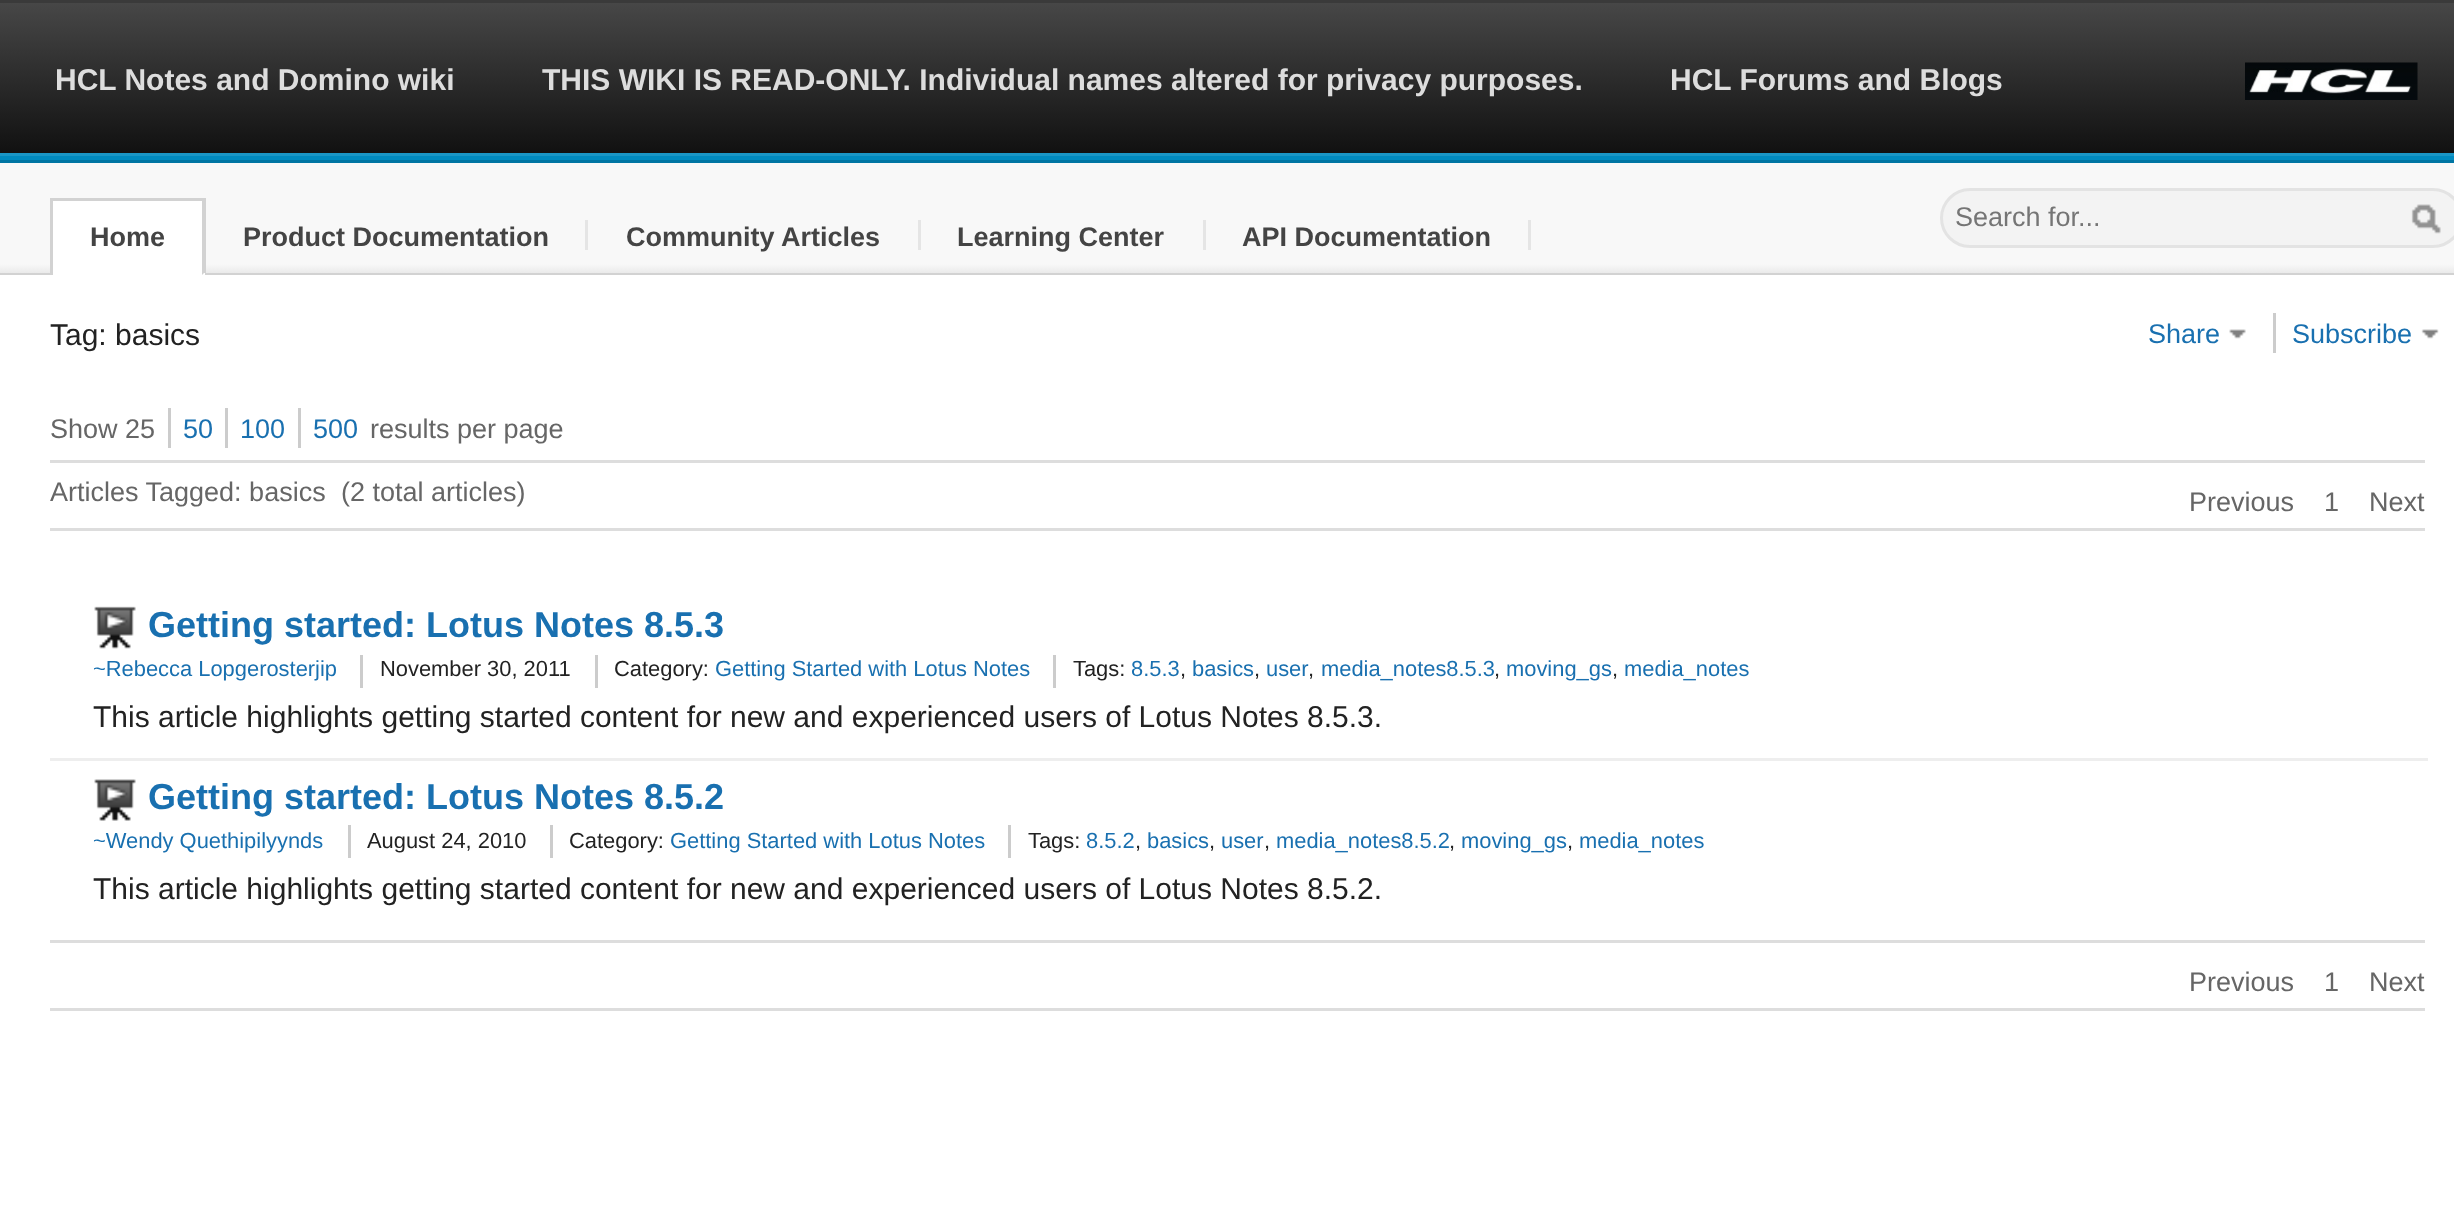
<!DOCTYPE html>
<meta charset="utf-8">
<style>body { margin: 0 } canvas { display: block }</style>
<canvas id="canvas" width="2454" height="1222"></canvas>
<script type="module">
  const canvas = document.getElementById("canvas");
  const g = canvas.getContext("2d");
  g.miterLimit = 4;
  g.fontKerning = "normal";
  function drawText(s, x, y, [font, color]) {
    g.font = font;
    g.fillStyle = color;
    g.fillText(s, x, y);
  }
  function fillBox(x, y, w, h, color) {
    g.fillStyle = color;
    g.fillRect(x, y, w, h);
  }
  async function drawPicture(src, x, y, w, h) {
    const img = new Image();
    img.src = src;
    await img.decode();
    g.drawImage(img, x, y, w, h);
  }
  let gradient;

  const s1 = ["bold 30px Liberation Sans", "#DDDDDD"];
  const s2 = ["27px Liberation Sans", "#757575"];
  const s3 = ["bold 27px Liberation Sans", "#444444"];
  const s4 = ["30px Liberation Sans", "#222222"];
  const s5 = ["27px Liberation Sans", "#1970B0"];
  const s6 = ["27px Liberation Sans", "#666666"];
  const s7 = ["bold 36px Liberation Sans", "#1970B0"];
  const s8 = ["21.9px Liberation Sans", "#1970B0"];
  const s9 = ["21.9px Liberation Sans", "#222222"];

  fillBox(0, 0, 2454, 1222, "#FFFFFF");
  fillBox(0, 156, 2454, 4, "#008ABF");
  fillBox(0, 160, 2454, 3, "#0075A3");
  gradient = g.createLinearGradient(0, 2.5, 0, 153);
  gradient.addColorStop(0, "#474747");
  gradient.addColorStop(1, "#111111");
  g.fillStyle = gradient;
  g.fillRect(0, 3, 2454, 150);
  fillBox(0, 0, 2454, 3, "#3A3A3A");
  fillBox(0, 153, 2454, 3, "#1A96C6");
  drawText("HCL Notes and Domino wiki", 55, 90, s1);
  drawText("THIS WIKI IS READ-ONLY. Individual names altered for privacy purposes.", 542, 90, s1);
  drawText("HCL Forums and Blogs", 1670, 90, s1);
  await drawPicture("pic1.png", 2245, 62, 173, 38);
  gradient = g.createLinearGradient(0, 163, 0, 273);
  gradient.addColorStop(0, "#F8F8F8");
  gradient.addColorStop(0.92, "#F8F8F8");
  gradient.addColorStop(1, "#EAEAEA");
  g.fillStyle = gradient;
  g.fillRect(0, 163, 2454, 110);
  fillBox(0, 273, 2454, 2, "#D2D2D2");
  g.fillStyle = "#F3F3F3";
  g.beginPath();
  g.roundRect(1941.5, 189.5, 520, 57, 28.5);
  g.fill();
  g.strokeStyle = "#E3E3E3";
  g.lineWidth = 3;
  g.stroke();
  drawText("Search for...", 1955, 226, s2);
  await drawPicture("pic2.png", 2411, 204, 30, 30);
  fillBox(53, 201, 149, 72, "#FFFFFF");
  fillBox(50, 198, 155, 3, "#D2D2D2");
  fillBox(203, 198, 3, 77, "#D2D2D2");
  fillBox(50, 273, 155, 2, "#FFFFFF");
  fillBox(50, 198, 3, 77, "#D2D2D2");
  drawText("Home", 90, 246, s3);
  g.fillStyle = "#D2D2D2";
  g.beginPath();
  g.moveTo(202, 275);
  g.lineTo(202, 198);
  g.lineTo(205, 200);
  g.lineTo(205, 272);
  g.closePath();
  g.fill();
  drawText("Product Documentation", 243, 246, s3);
  fillBox(585, 220, 3, 30, "#E5E5E5");
  drawText("Community Articles", 626, 246, s3);
  fillBox(918, 220, 3, 30, "#E5E5E5");
  drawText("Learning Center", 957, 246, s3);
  fillBox(1203, 220, 3, 30, "#E5E5E5");
  drawText("API Documentation", 1242, 246, s3);
  fillBox(1528, 220, 3, 30, "#E5E5E5");
  drawText("Tag: basics", 50, 345, s4);
  drawText("Share", 2148, 343, s5);
  await drawPicture("pic3.png", 2229, 329, 17, 10);
  fillBox(2273, 313, 3, 40, "#CCCCCC");
  drawText("Subscribe", 2292, 343, s5);
  await drawPicture("pic4.png", 2421, 329, 18, 10);
  drawText("Show 25", 50, 438, s6);
  fillBox(168, 408, 3, 40, "#CCCCCC");
  drawText("50", 183, 438, s5);
  fillBox(225, 408, 3, 40, "#CCCCCC");
  drawText("100", 240, 438, s5);
  fillBox(298, 408, 3, 40, "#CCCCCC");
  drawText("500", 313, 438, s5);
  drawText("results per page", 370, 438, s6);
  fillBox(50, 460, 2375, 3, "#DDDDDD");
  fillBox(50, 528, 2375, 3, "#DDDDDD");
  drawText("Articles Tagged: basics", 50, 501, s6);
  drawText("(2 total articles)", 341, 501, s6);
  drawText("Previous", 2189, 511, s6);
  drawText("1", 2324, 511, s6);
  drawText("Next", 2369, 511, s6);
  await drawPicture("pic5.png", 94, 606, 42, 43);
  drawText("Getting started: Lotus Notes 8.5.3", 148, 637, s7);
  drawText("~Rebecca Lopgerosterjip", 93, 676, s8);
  fillBox(360, 655, 3, 33, "#CCCCCC");
  drawText("November 30, 2011", 380, 676, s9);
  fillBox(595, 655, 3, 33, "#CCCCCC");
  drawText("Category:", 614, 676, s9);
  drawText("Getting Started with Lotus Notes", 715, 676, s8);
  fillBox(1053, 655, 3, 33, "#CCCCCC");
  drawText("Tags:", 1073, 676, s9);
  drawText("8.5.3", 1131, 676, s8);
  drawText(",", 1180, 676, s9);
  drawText("basics", 1192, 676, s8);
  drawText(",", 1254, 676, s9);
  drawText("user", 1266, 676, s8);
  drawText(",", 1308, 676, s9);
  drawText("media_notes8.5.3", 1321, 676, s8);
  drawText(",", 1494, 676, s9);
  drawText("moving_gs", 1506, 676, s8);
  drawText(",", 1612, 676, s9);
  drawText("media_notes", 1624, 676, s8);
  drawText("This article highlights getting started content for new and experienced users of Lotus Notes 8.5.3.", 93, 727, s4);
  fillBox(50, 758, 2378, 3, "#EEEEEE");
  await drawPicture("pic6.png", 94, 779, 42, 42);
  drawText("Getting started: Lotus Notes 8.5.2", 148, 809, s7);
  drawText("~Wendy Quethipilyynds", 93, 848, s8);
  fillBox(348, 825, 3, 33, "#CCCCCC");
  drawText("August 24, 2010", 367, 848, s9);
  fillBox(550, 825, 3, 33, "#CCCCCC");
  drawText("Category:", 569, 848, s9);
  drawText("Getting Started with Lotus Notes", 670, 848, s8);
  fillBox(1008, 825, 3, 33, "#CCCCCC");
  drawText("Tags:", 1028, 848, s9);
  drawText("8.5.2", 1086, 848, s8);
  drawText(",", 1135, 848, s9);
  drawText("basics", 1147, 848, s8);
  drawText(",", 1209, 848, s9);
  drawText("user", 1221, 848, s8);
  drawText(",", 1264, 848, s9);
  drawText("media_notes8.5.2", 1276, 848, s8);
  drawText(",", 1449, 848, s9);
  drawText("moving_gs", 1461, 848, s8);
  drawText(",", 1567, 848, s9);
  drawText("media_notes", 1579, 848, s8);
  drawText("This article highlights getting started content for new and experienced users of Lotus Notes 8.5.2.", 93, 899, s4);
  fillBox(50, 940, 2375, 3, "#DDDDDD");
  fillBox(50, 1008, 2375, 3, "#DDDDDD");
  drawText("Previous", 2189, 991, s6);
  drawText("1", 2324, 991, s6);
  drawText("Next", 2369, 991, s6);
</script>
